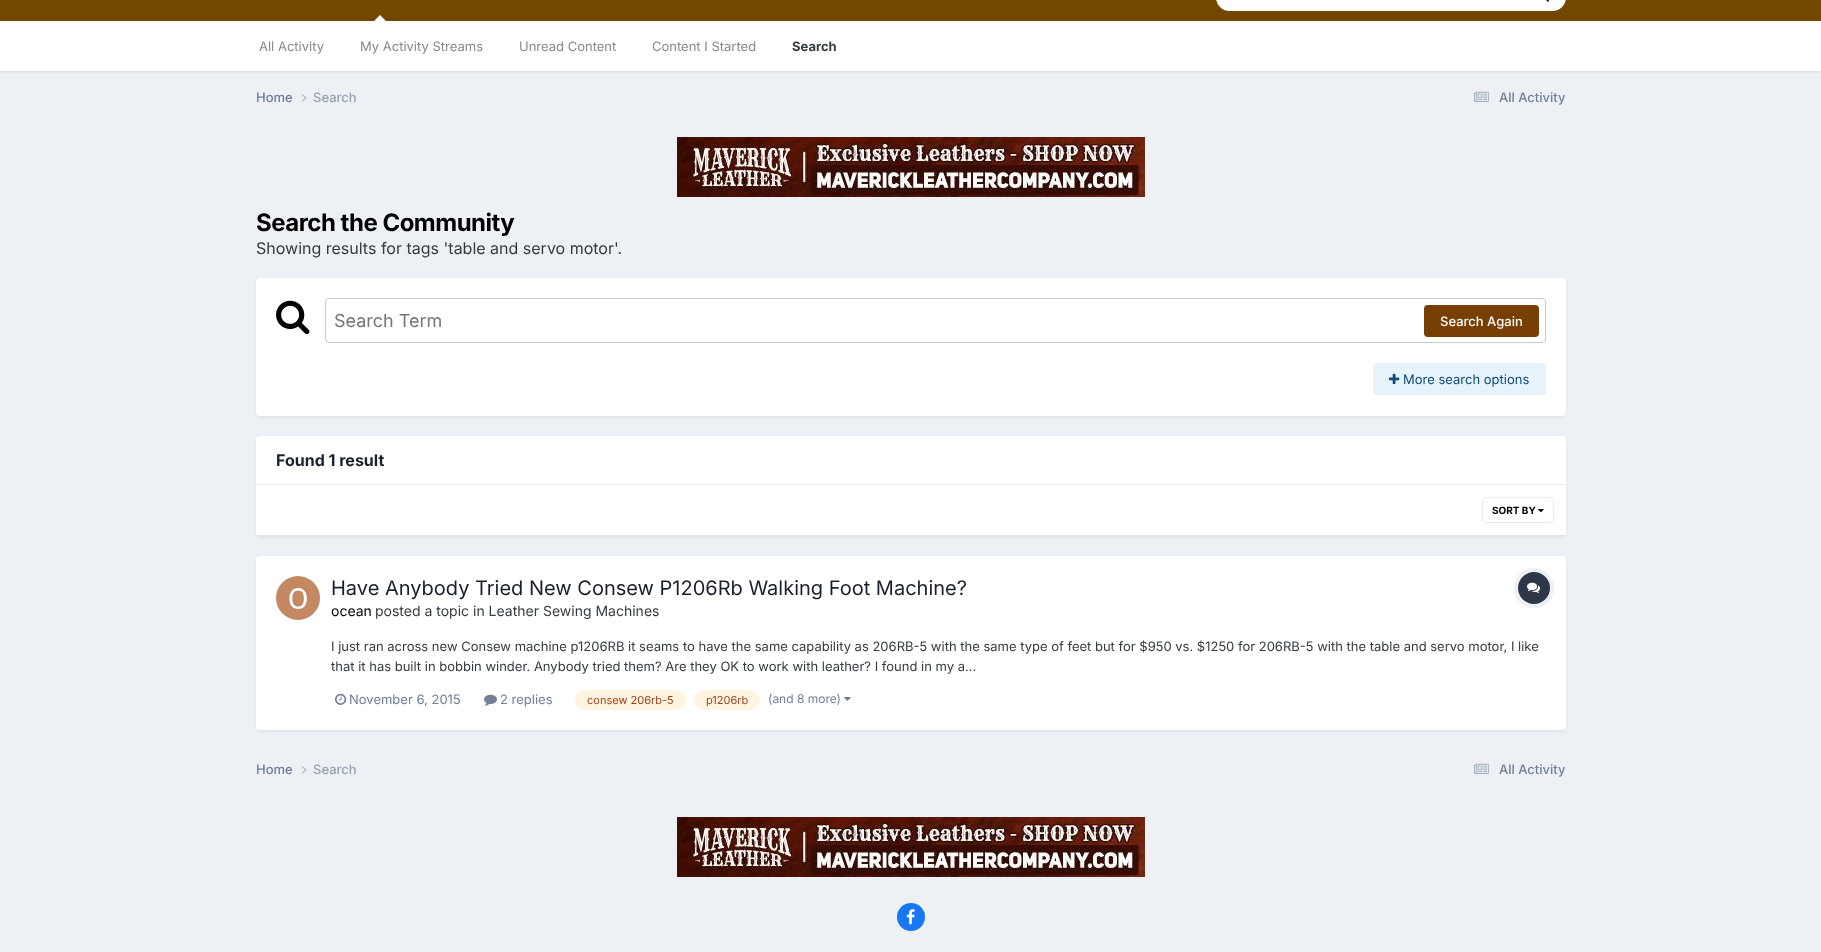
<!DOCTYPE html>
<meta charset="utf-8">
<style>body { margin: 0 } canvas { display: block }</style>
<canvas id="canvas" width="1821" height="952"></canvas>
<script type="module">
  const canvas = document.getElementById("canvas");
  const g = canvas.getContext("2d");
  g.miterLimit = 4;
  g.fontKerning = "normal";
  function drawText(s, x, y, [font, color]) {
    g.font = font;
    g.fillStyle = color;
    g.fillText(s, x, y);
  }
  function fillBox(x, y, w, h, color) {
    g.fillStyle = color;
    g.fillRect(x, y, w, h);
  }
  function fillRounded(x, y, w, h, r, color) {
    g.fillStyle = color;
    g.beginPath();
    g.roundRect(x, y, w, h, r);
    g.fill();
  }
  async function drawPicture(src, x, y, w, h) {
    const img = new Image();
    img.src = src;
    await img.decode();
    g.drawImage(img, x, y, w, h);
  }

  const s1 = ["13px Inter", "#868A8D"];
  const s2 = ["bold 13px Inter", "#353C41"];
  const s3 = ["500 13px Inter", "#718096"];
  const s4 = ["500 13px Inter", "#96A2B2"];
  const s5 = ["bold 24px Inter", "#000000"];
  const s6 = ["16px Inter", "#353C41"];
  const s7 = ["18px Inter", "#757575"];
  const s8 = ["500 13px Inter", "#FFFFFF"];
  const s9 = ["13px Inter", "#0E4C79"];
  const s10 = ["bold 16px Inter", "#1A202C"];
  const s11 = ["bold 10px Inter", "#000000"];
  const s12 = ["20px Inter", "#1A202C"];
  const s13 = ["14px Inter", "#000000"];
  const s14 = ["14px Inter", "#353C41"];
  const s15 = ["13px Inter", "#353C41"];
  const s16 = ["13px Inter", "#718096"];
  const s17 = ["11px Inter", "#9C4221"];
  const s18 = ["12px Inter", "#718096"];

  fillBox(0, 0, 1821, 952, "#EDF0F4");
  fillBox(0, 0, 1821, 21, "#744700");
  g.fillStyle = "rgba(0, 0, 0, 0.1)";
  g.filter = "blur(1px)";
  g.beginPath();
  g.rect(0, 22, 1821, 50);
  g.fill();
  g.filter = "none";
  fillBox(0, 21, 1821, 50, "#FFFFFF");
  fillRounded(1216, -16, 350, 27, 16, "#FFFFFF");
  await drawPicture("pic1.png", 1546, 0, 3, 2);
  g.beginPath();
  g.moveTo(386, 21);
  g.lineTo(374, 21);
  g.lineTo(380, 15);
  g.closePath();
  g.fill();
  drawText("All Activity", 259, 51, s1);
  drawText("My Activity Streams", 360, 51, s1);
  drawText("Unread Content", 519, 51, s1);
  drawText("Content I Started", 652, 51, s1);
  drawText("Search", 792, 51, s2);
  drawText("Home", 256, 102, s3);
  await drawPicture("pic2.png", 302, 94, 5, 8);
  drawText("Search", 313, 102, s4);
  await drawPicture("pic3.png", 1474, 91, 15, 11);
  drawText("All Activity", 1499, 102, s3);
  await drawPicture("pic4.png", 677, 137, 468, 60);
  g.letterSpacing = "-0.5px";
  drawText("Search the Community", 256, 231, s5);
  g.letterSpacing = "0px";
  drawText("Showing results for tags 'table and servo motor'.", 256, 254, s6);
  g.fillStyle = "rgba(45, 55, 72, 0.1)";
  g.filter = "blur(2px)";
  g.beginPath();
  g.roundRect(257, 281, 1308, 136, 3);
  g.fill();
  g.filter = "none";
  fillRounded(256, 278, 1310, 138, 4, "#FFFFFF");
  await drawPicture("pic5.png", 276, 300, 34, 35);
  g.beginPath();
  g.roundRect(325.5, 298.5, 1220, 44, 3.5);
  g.strokeStyle = "#C6CCD5";
  g.stroke();
  drawText("Search Term", 334, 327, s7);
  fillRounded(1424, 305, 115, 32, 4, "#783F04");
  drawText("Search Again", 1440, 326, s8);
  fillRounded(1373, 363, 173, 32, 4, "#E8F2FA");
  await drawPicture("pic6.png", 1389, 373, 11, 11);
  drawText("More search options", 1403, 384, s9);
  g.fillStyle = "rgba(45, 55, 72, 0.1)";
  g.filter = "blur(2px)";
  g.beginPath();
  g.roundRect(257, 439, 1308, 98, 3);
  g.fill();
  g.filter = "none";
  g.fillStyle = "#FFFFFF";
  g.beginPath();
  g.roundRect(256, 436, 1310, 49, [4, 4, 0, 0]);
  g.fill();
  fillBox(256, 484, 1310, 1, "#EAECEF");
  drawText("Found 1 result", 276, 466, s10);
  fillBox(256, 485, 1310, 50, "#FFFFFF");
  fillBox(256, 535, 1310, 1, "#E1E2E3");
  await drawPicture("pic7.png", 1538, 509, 6, 4);
  g.beginPath();
  g.roundRect(1482.5, 497.5, 71, 25, 3.5);
  g.strokeStyle = "#EBECEC";
  g.stroke();
  drawText("SORT BY", 1492, 514, s11);
  g.fillStyle = "rgba(45, 55, 72, 0.1)";
  g.filter = "blur(2px)";
  g.beginPath();
  g.roundRect(257, 559, 1308, 172, 3);
  g.fill();
  g.filter = "none";
  fillRounded(256, 556, 1310, 174, 4, "#FFFFFF");
  await drawPicture("pic8.png", 276, 576, 44, 44);
  drawText("Have Anybody Tried New Consew P1206Rb Walking Foot Machine?", 331, 595, s12);
  drawText("ocean", 331, 616, s13);
  drawText("posted a topic in Leather Sewing Machines", 375, 616, s14);
  g.beginPath();
  g.arc(1534, 588, 18, 0, Math.PI * 2);
  g.strokeStyle = "#EDF0F4";
  g.lineWidth = 4;
  g.stroke();
  g.fillStyle = "#2D3748";
  g.beginPath();
  g.arc(1534, 588, 16, 0, Math.PI * 2);
  g.fill();
  await drawPicture("pic9.png", 1527, 582, 13, 11);
  drawText("I just ran across new Consew machine p1206RB it seams to have the same capability as 206RB-5 with the same type of feet but for $950 vs. $1250 for 206RB-5 with the table and servo motor, I like", 331, 651, s15);
  drawText("that it has built in bobbin winder. Anybody tried them? Are they OK to work with leather? I found in my a...", 331, 671, s15);
  await drawPicture("pic10.png", 335, 693, 12, 12);
  drawText("November 6, 2015", 349, 704, s16);
  await drawPicture("pic11.png", 484, 694, 13, 12);
  drawText("2 replies", 500, 704, s16);
  fillRounded(575, 690, 111, 20, 10, "#FFF4DF");
  drawText("consew 206rb-5", 587, 704, s17);
  fillRounded(694, 690, 66, 20, 10, "#FFF4DF");
  drawText("p1206rb", 706, 704, s17);
  drawText("(and 8 more)", 768, 703, s18);
  await drawPicture("pic12.png", 844, 697, 7, 4);
  drawText("Home", 256, 774, s3);
  await drawPicture("pic2.png", 302, 766, 5, 8);
  drawText("Search", 313, 774, s4);
  await drawPicture("pic3.png", 1474, 763, 15, 11);
  drawText("All Activity", 1499, 774, s3);
  await drawPicture("pic4.png", 677, 817, 468, 60);
  g.fillStyle = "#1778F2";
  g.beginPath();
  g.arc(911, 917, 14, 0, Math.PI * 2);
  g.fill();
  await drawPicture("pic13.png", 906, 909, 9, 16);
</script>
